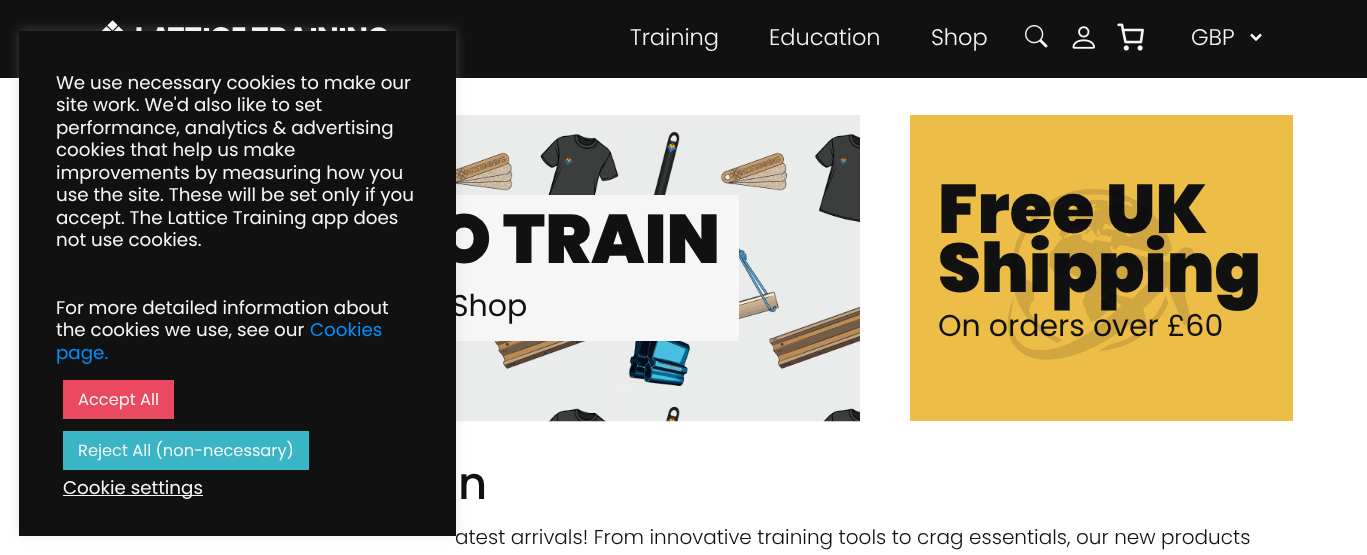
<!DOCTYPE html>
<meta charset="utf-8">
<style>body { margin: 0 } canvas { display: block }</style>
<canvas id="canvas" width="1367" height="555"></canvas>
<script type="module">
  const canvas = document.getElementById("canvas");
  const g = canvas.getContext("2d");
  g.miterLimit = 4;
  g.fontKerning = "normal";
  function drawText(s, x, y, [font, color]) {
    g.font = font;
    g.fillStyle = color;
    g.fillText(s, x, y);
  }
  function fillBox(x, y, w, h, color) {
    g.fillStyle = color;
    g.fillRect(x, y, w, h);
  }
  async function drawPicture(src, x, y, w, h) {
    const img = new Image();
    img.src = src;
    await img.decode();
    g.drawImage(img, x, y, w, h);
  }

  const s1 = ["300 22.5px Poppins", "#F5F7F6"];
  const s2 = ["18.3px Poppins", "#F5F7F6"];
  const s3 = ["18.3px Poppins", "#0090FF"];
  const s4 = ["16.25px Poppins", "#F5F7F6"];
  const s5 = ["900 68.75px Poppins", "#111111"];
  const s6 = ["30px Poppins", "#111111"];
  const s7 = ["500 45px Poppins", "#111111"];
  const s8 = ["300 20px Poppins", "#111111"];

  fillBox(0, 0, 1367, 555, "#FFFFFF");
  fillBox(0, 0, 1367, 78, "#111111");
  await drawPicture("pic1.png", 101, 20, 286, 11);
  drawText("Training", 630, 45, s1);
  drawText("Education", 769, 45, s1);
  drawText("Shop", 931, 45, s1);
  await drawPicture("pic2.png", 1025, 25, 23, 23);
  await drawPicture("pic3.png", 1072, 26, 23, 23);
  await drawPicture("pic4.png", 1117, 23, 27, 28);
  g.beginPath();
  g.moveTo(1251, 34.5);
  g.lineTo(1256, 39.5);
  g.lineTo(1261, 34.5);
  g.strokeStyle = "#F5F7F6";
  g.lineWidth = 2.5;
  g.stroke();
  drawText("GBP", 1191, 45, s1);
  fillBox(456, 115, 404, 306, "#F6F6F6");
  await drawPicture("pic5.png", 456, 115, 404, 307);
  fillBox(456, 195, 283, 146, "#F6F6F6");
  g.fillStyle = "rgba(172, 171, 171, 0.3)";
  g.filter = "blur(6px)";
  g.beginPath();
  g.rect(19, 30, 437, 505);
  g.fill();
  g.filter = "none";
  fillBox(19, 31, 437, 505, "#111111");
  drawText("We use necessary cookies to make our", 56, 89, s2);
  drawText("site work. We'd also like to set", 56, 111, s2);
  drawText("performance, analytics & advertising", 56, 134, s2);
  drawText("cookies that help us make", 56, 156, s2);
  drawText("improvements by measuring how you", 56, 179, s2);
  drawText("use the site. These will be set only if you", 56, 201, s2);
  drawText("accept. The Lattice Training app does", 56, 224, s2);
  drawText("not use cookies.", 56, 246, s2);
  drawText("For more detailed information about", 56, 314, s2);
  drawText("the cookies we use, see our", 56, 336, s2);
  drawText("Cookies", 310, 336, s3);
  drawText("page.", 56, 359, s3);
  fillBox(63, 380, 111, 39, "#EB4960");
  drawText("Accept All", 78, 405, s4);
  fillBox(63, 431, 246, 39, "#3AB5C5");
  drawText("Reject All (non-necessary)", 78, 456, s4);
  fillBox(63, 495, 140, 1, "#F5F7F6");
  drawText("Cookie settings", 63, 494, s2);
  drawText("O TRAIN", 437, 263, s5);
  drawText("Shop", 451, 316, s6);
  fillBox(910, 115, 383, 306, "#ECBE48");
  drawText("Free UK", 938, 233, s5);
  drawText("Shipping", 938, 292, s5);
  drawText("On orders over £60", 938, 336, s6);
  await drawPicture("pic6.png", 1007, 189, 188, 171);
  drawText("n", 458, 499, s7);
  drawText("atest arrivals! From innovative training tools to crag essentials, our new products", 455, 544, s8);
</script>
